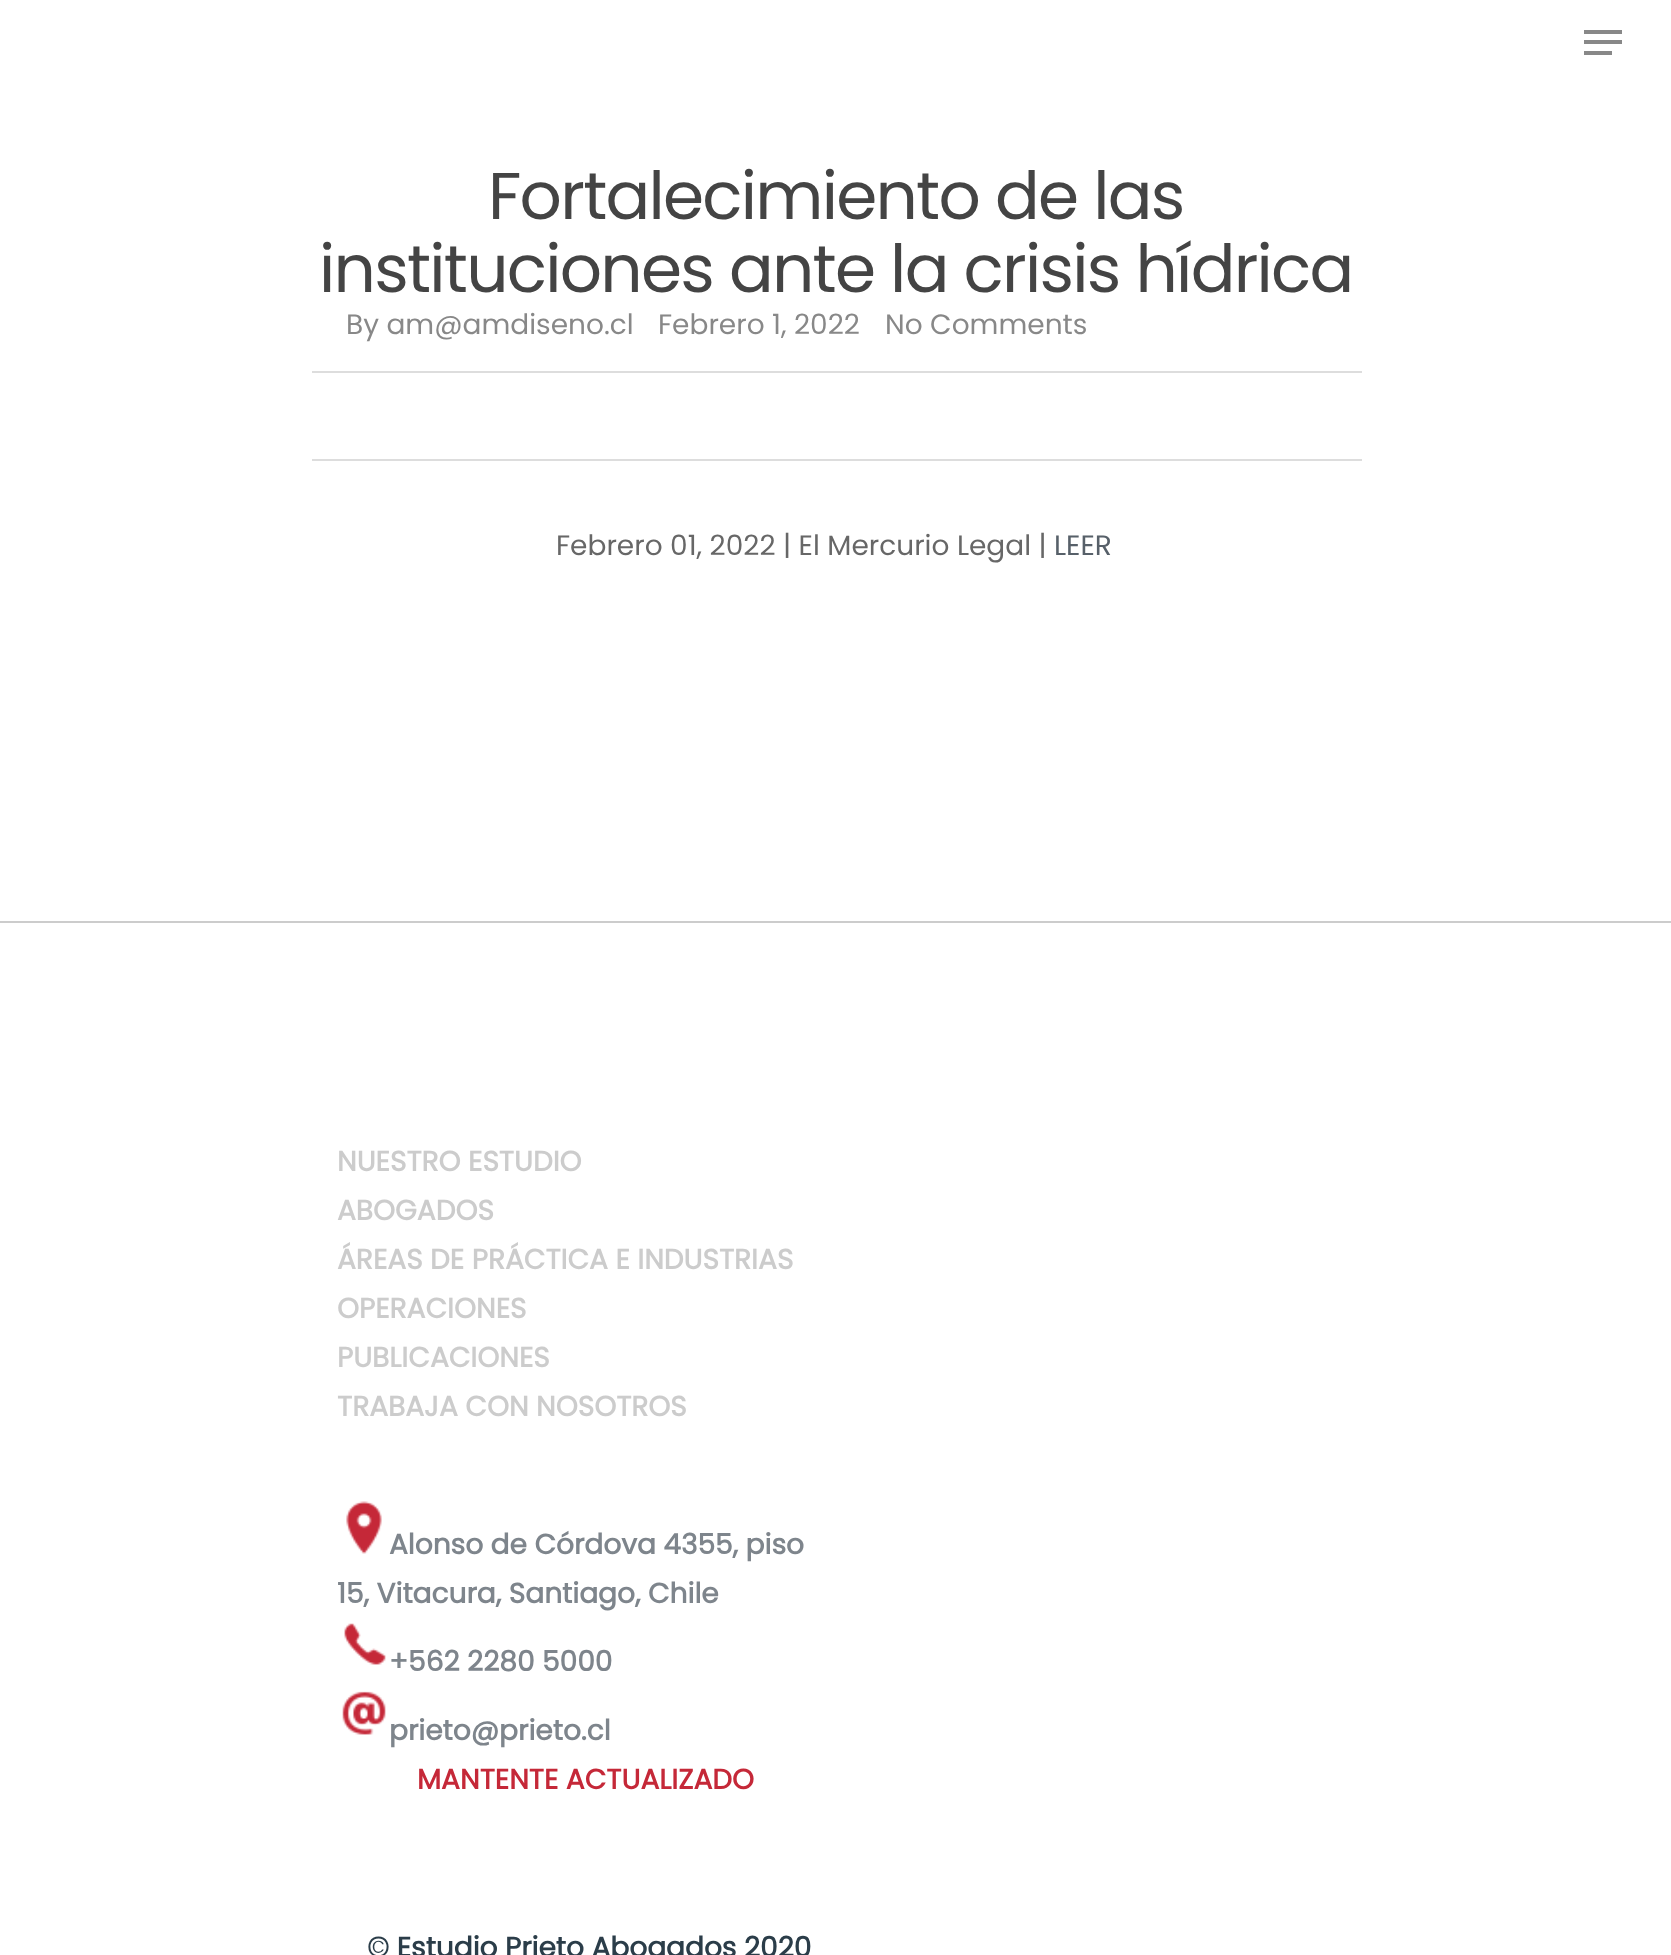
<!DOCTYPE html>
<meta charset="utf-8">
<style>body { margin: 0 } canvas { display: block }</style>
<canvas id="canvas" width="1671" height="1955"></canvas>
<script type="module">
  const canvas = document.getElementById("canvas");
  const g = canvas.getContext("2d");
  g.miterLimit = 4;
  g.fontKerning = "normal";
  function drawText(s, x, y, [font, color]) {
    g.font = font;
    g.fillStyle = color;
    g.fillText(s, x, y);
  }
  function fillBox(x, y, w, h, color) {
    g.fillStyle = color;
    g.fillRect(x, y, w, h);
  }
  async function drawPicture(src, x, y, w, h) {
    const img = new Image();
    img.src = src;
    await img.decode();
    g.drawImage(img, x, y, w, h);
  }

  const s1 = ["66.2px Poppins", "#444444"];
  const s2 = ["28px Poppins", "#888888"];
  const s3 = ["28px Poppins", "#676767"];
  const s4 = ["28px Poppins", "#576069"];
  const s5 = ["bold 28px Poppins", "#CCCCCC"];
  const s6 = ["bold 28px Poppins", "#7E858C"];
  const s7 = ["bold 28px Poppins", "#C52838"];
  const s8 = ["bold 28px Poppins", "#2B3D49"];

  fillBox(0, 0, 1671, 1955, "#FFFFFF");
  fillBox(1584, 30, 38, 4, "#888888");
  fillBox(1584, 51, 28, 4, "#888888");
  fillBox(1584, 40, 38, 4, "#888888");
  fillBox(312, 459, 1050, 2, "#DDDDDD");
  fillBox(312, 371, 1050, 2, "#DDDDDD");
  g.letterSpacing = "-1.75px";
  drawText("Fortalecimiento de las", 488, 219, s1);
  drawText("instituciones ante la crisis hídrica", 319, 292, s1);
  g.letterSpacing = "0px";
  drawText("By am@amdiseno.cl", 346, 334, s2);
  drawText("Febrero 1, 2022", 658, 334, s2);
  drawText("No Comments", 885, 334, s2);
  drawText("Febrero 01, 2022 | El Mercurio Legal |", 556, 555, s3);
  drawText("LEER", 1054, 555, s4);
  fillBox(0, 921, 1671, 2, "#CCCCCC");
  drawText("NUESTRO ESTUDIO", 337, 1171, s5);
  drawText("ABOGADOS", 337, 1220, s5);
  drawText("ÁREAS DE PRÁCTICA E INDUSTRIAS", 337, 1269, s5);
  drawText("OPERACIONES", 337, 1318, s5);
  drawText("PUBLICACIONES", 337, 1367, s5);
  drawText("TRABAJA CON NOSOTROS", 337, 1416, s5);
  await drawPicture("pic1.png", 346, 1501, 36, 53);
  drawText("Alonso de Córdova 4355, piso", 389, 1554, s6);
  drawText("15, Vitacura, Santiago, Chile", 337, 1603, s6);
  await drawPicture("pic2.png", 344, 1623, 42, 42);
  drawText("+562 2280 5000", 389, 1671, s6);
  await drawPicture("pic3.png", 342, 1691, 44, 44);
  drawText("prieto@prieto.cl", 389, 1740, s6);
  drawText("MANTENTE ACTUALIZADO", 417, 1789, s7);
  drawText("© Estudio Prieto Abogados 2020", 367, 1957, s8);
</script>
